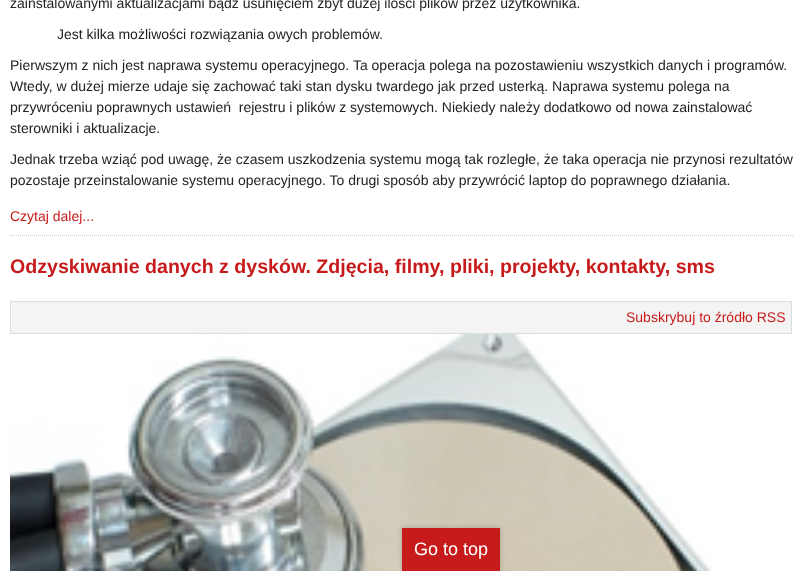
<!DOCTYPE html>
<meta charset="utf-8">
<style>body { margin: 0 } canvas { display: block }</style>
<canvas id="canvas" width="803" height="571"></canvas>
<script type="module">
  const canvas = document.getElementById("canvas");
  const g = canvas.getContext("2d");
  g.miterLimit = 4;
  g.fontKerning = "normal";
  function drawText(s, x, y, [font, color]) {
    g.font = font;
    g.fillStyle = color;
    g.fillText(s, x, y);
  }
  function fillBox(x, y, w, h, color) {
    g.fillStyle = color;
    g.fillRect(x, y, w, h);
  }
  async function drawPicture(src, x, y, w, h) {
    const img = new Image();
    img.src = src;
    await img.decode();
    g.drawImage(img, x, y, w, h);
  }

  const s1 = ["14px Liberation Sans", "#222222"];
  const s2 = ["14px Liberation Sans", "#C71A1A"];
  const s3 = ["bold 19.6px Liberation Sans", "#C71A1A"];
  const s4 = ["18px Liberation Sans", "#FFFFFF"];

  fillBox(0, 0, 803, 571, "#FFFFFF");
  g.beginPath();
  g.moveTo(10, 235.5);
  g.lineTo(793, 235.5);
  g.strokeStyle = "#CCCCCC";
  g.setLineDash([1, 1]);
  g.stroke();
  drawText("zainstalowanymi aktualizacjami bądź usunięciem zbyt dużej ilości plików przez użytkownika.", 10, 8, s1);
  drawText("Jest kilka możliwości rozwiązania owych problemów.", 57, 39, s1);
  drawText("Pierwszym z nich jest naprawa systemu operacyjnego. Ta operacja polega na pozostawieniu wszystkich danych i programów.", 10, 70, s1);
  drawText("Wtedy, w dużej mierze udaje się zachować taki stan dysku twardego jak przed usterką. Naprawa systemu polega na", 10, 91, s1);
  drawText("przywróceniu poprawnych ustawień  rejestru i plików z systemowych. Niekiedy należy dodatkowo od nowa zainstalować", 10, 112, s1);
  drawText("sterowniki i aktualizacje.", 10, 133, s1);
  drawText("Jednak trzeba wziąć pod uwagę, że czasem uszkodzenia systemu mogą tak rozległe, że taka operacja nie przynosi rezultatów", 10, 164, s1);
  drawText("pozostaje przeinstalowanie systemu operacyjnego. To drugi sposób aby przywrócić laptop do poprawnego działania.", 10, 185, s1);
  drawText("Czytaj dalej...", 10, 221, s2);
  drawText("Odzyskiwanie danych z dysków. Zdjęcia, filmy, pliki, projekty, kontakty, sms", 10, 273, s3);
  g.fillStyle = "#F4F4F4";
  g.beginPath();
  g.rect(10.5, 301.5, 781, 32);
  g.fill();
  g.strokeStyle = "#DDDDDD";
  g.setLineDash([]);
  g.stroke();
  drawText("Subskrybuj to źródło RSS", 626, 322, s2);
  await drawPicture("pic1.png", 10, 334, 703, 237);
  g.fillStyle = "rgba(0, 0, 0, 0.2)";
  g.filter = "blur(2.5px)";
  g.beginPath();
  g.rect(402, 528, 98, 43);
  g.fill();
  g.filter = "none";
  fillBox(402, 528, 98, 43, "#C71A1A");
  drawText("Go to top", 414, 555, s4);
</script>
